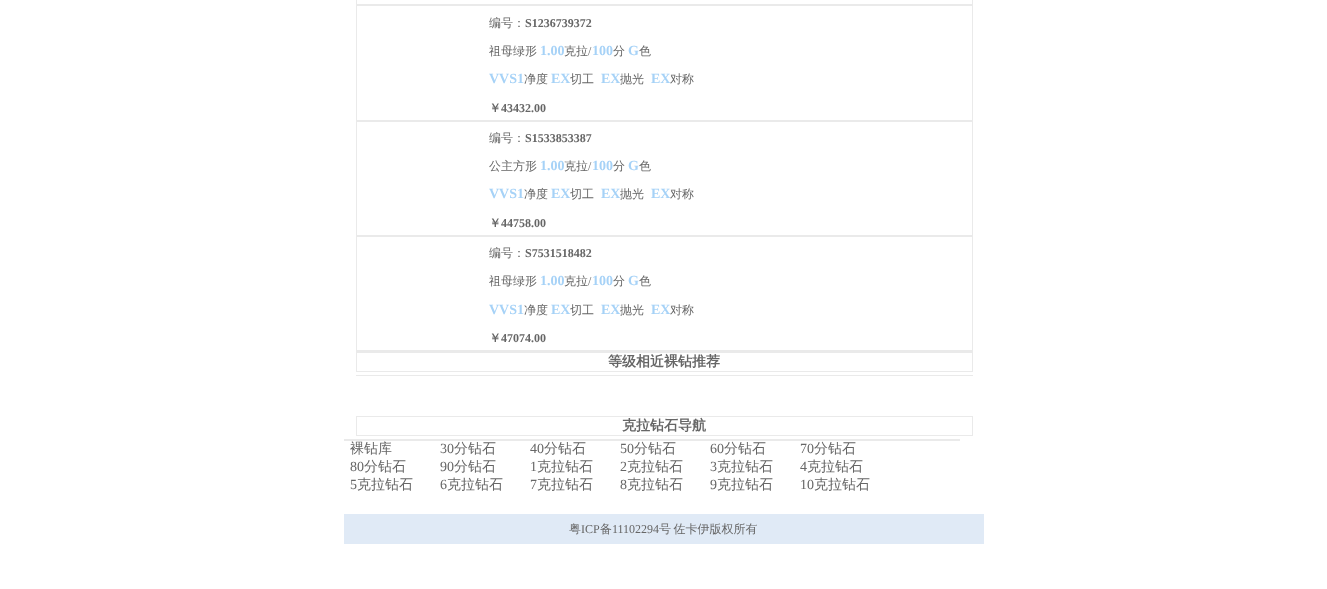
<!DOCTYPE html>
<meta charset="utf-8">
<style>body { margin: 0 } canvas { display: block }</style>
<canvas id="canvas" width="1327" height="589"></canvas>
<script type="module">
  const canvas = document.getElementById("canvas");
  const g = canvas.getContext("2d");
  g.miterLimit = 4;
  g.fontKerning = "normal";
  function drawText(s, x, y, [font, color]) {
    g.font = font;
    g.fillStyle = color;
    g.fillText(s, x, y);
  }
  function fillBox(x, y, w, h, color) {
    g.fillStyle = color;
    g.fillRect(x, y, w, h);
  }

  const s1 = ["500 12px WenQuanYi Zen Hei", "#666666"];
  const s2 = ["bold 12px Liberation Serif", "#666666"];
  const s3 = ["bold 14px Liberation Serif", "#A6D2F7"];
  const s4 = ["12px Liberation Serif", "#666666"];
  const s5 = ["bold 12px WenQuanYi Zen Hei", "#666666"];
  const s6 = ["bold 14px WenQuanYi Zen Hei", "#666666"];
  const s7 = ["500 14px WenQuanYi Zen Hei", "#666666"];
  const s8 = ["14px Liberation Serif", "#666666"];

  fillBox(0, 0, 1327, 589, "#FFFFFF");
  g.strokeStyle = "#EAEAEA";
  g.strokeRect(356.5, -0.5, 616, 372);
  fillBox(356, 352, 617, 1, "#EAEAEA");
  fillBox(357, 4, 615, 2, "#EAEAEA");
  fillBox(357, 120, 615, 2, "#EAEAEA");
  drawText("编号：", 489, 27, s1);
  drawText("S1236739372", 525, 27, s2);
  drawText("祖母绿形", 489, 55, s1);
  drawText("1.00", 540, 55, s3);
  drawText("克拉", 564, 55, s1);
  drawText("/", 588, 55, s4);
  drawText("100", 592, 55, s3);
  drawText("分", 613, 55, s1);
  drawText("G", 628, 55, s3);
  drawText("色", 639, 55, s1);
  drawText("VVS1", 489, 83, s3);
  drawText("净度", 524, 83, s1);
  drawText("EX", 551, 83, s3);
  drawText("切工", 570, 83, s1);
  drawText("EX", 601, 83, s3);
  drawText("抛光", 620, 83, s1);
  drawText("EX", 651, 83, s3);
  drawText("对称", 670, 83, s1);
  drawText("￥", 489, 112, s5);
  drawText("43432.00", 501, 112, s2);
  fillBox(357, 235, 615, 2, "#EAEAEA");
  drawText("编号：", 489, 142, s1);
  drawText("S1533853387", 525, 142, s2);
  drawText("公主方形", 489, 170, s1);
  drawText("1.00", 540, 170, s3);
  drawText("克拉", 564, 170, s1);
  drawText("/", 588, 170, s4);
  drawText("100", 592, 170, s3);
  drawText("分", 613, 170, s1);
  drawText("G", 628, 170, s3);
  drawText("色", 639, 170, s1);
  drawText("VVS1", 489, 198, s3);
  drawText("净度", 524, 198, s1);
  drawText("EX", 551, 198, s3);
  drawText("切工", 570, 198, s1);
  drawText("EX", 601, 198, s3);
  drawText("抛光", 620, 198, s1);
  drawText("EX", 651, 198, s3);
  drawText("对称", 670, 198, s1);
  drawText("￥", 489, 227, s5);
  drawText("44758.00", 501, 227, s2);
  fillBox(357, 350, 615, 2, "#EAEAEA");
  drawText("编号：", 489, 257, s1);
  drawText("S7531518482", 525, 257, s2);
  drawText("祖母绿形", 489, 285, s1);
  drawText("1.00", 540, 285, s3);
  drawText("克拉", 564, 285, s1);
  drawText("/", 588, 285, s4);
  drawText("100", 592, 285, s3);
  drawText("分", 613, 285, s1);
  drawText("G", 628, 285, s3);
  drawText("色", 639, 285, s1);
  drawText("VVS1", 489, 314, s3);
  drawText("净度", 524, 314, s1);
  drawText("EX", 551, 314, s3);
  drawText("切工", 570, 314, s1);
  drawText("EX", 601, 314, s3);
  drawText("抛光", 620, 314, s1);
  drawText("EX", 651, 314, s3);
  drawText("对称", 670, 314, s1);
  drawText("￥", 489, 342, s5);
  drawText("47074.00", 501, 342, s2);
  drawText("等级相近裸钻推荐", 608, 366, s6);
  fillBox(356, 375, 617, 1, "#EAEAEA");
  g.strokeRect(356.5, 416.5, 616, 19);
  drawText("克拉钻石导航", 622, 430, s6);
  fillBox(344, 439, 616, 2, "#EAEAEA");
  drawText("裸钻库", 350, 453, s7);
  drawText("30", 440, 453, s8);
  drawText("分钻石", 454, 453, s7);
  drawText("40", 530, 453, s8);
  drawText("分钻石", 544, 453, s7);
  drawText("50", 620, 453, s8);
  drawText("分钻石", 634, 453, s7);
  drawText("60", 710, 453, s8);
  drawText("分钻石", 724, 453, s7);
  drawText("70", 800, 453, s8);
  drawText("分钻石", 814, 453, s7);
  drawText("80", 350, 471, s8);
  drawText("分钻石", 364, 471, s7);
  drawText("90", 440, 471, s8);
  drawText("分钻石", 454, 471, s7);
  drawText("1", 530, 471, s8);
  drawText("克拉钻石", 537, 471, s7);
  drawText("2", 620, 471, s8);
  drawText("克拉钻石", 627, 471, s7);
  drawText("3", 710, 471, s8);
  drawText("克拉钻石", 717, 471, s7);
  drawText("4", 800, 471, s8);
  drawText("克拉钻石", 807, 471, s7);
  drawText("5", 350, 489, s8);
  drawText("克拉钻石", 357, 489, s7);
  drawText("6", 440, 489, s8);
  drawText("克拉钻石", 447, 489, s7);
  drawText("7", 530, 489, s8);
  drawText("克拉钻石", 537, 489, s7);
  drawText("8", 620, 489, s8);
  drawText("克拉钻石", 627, 489, s7);
  drawText("9", 710, 489, s8);
  drawText("克拉钻石", 717, 489, s7);
  drawText("10", 800, 489, s8);
  drawText("克拉钻石", 814, 489, s7);
  fillBox(344, 514, 640, 30, "#E0EAF6");
  drawText("粤", 569, 533, s1);
  drawText("ICP", 581, 533, s4);
  drawText("备", 600, 533, s1);
  drawText("11102294", 612, 533, s4);
  g.wordSpacing = "-1px";
  drawText("号 佐卡伊版权所有", 659, 533, s1);
</script>
